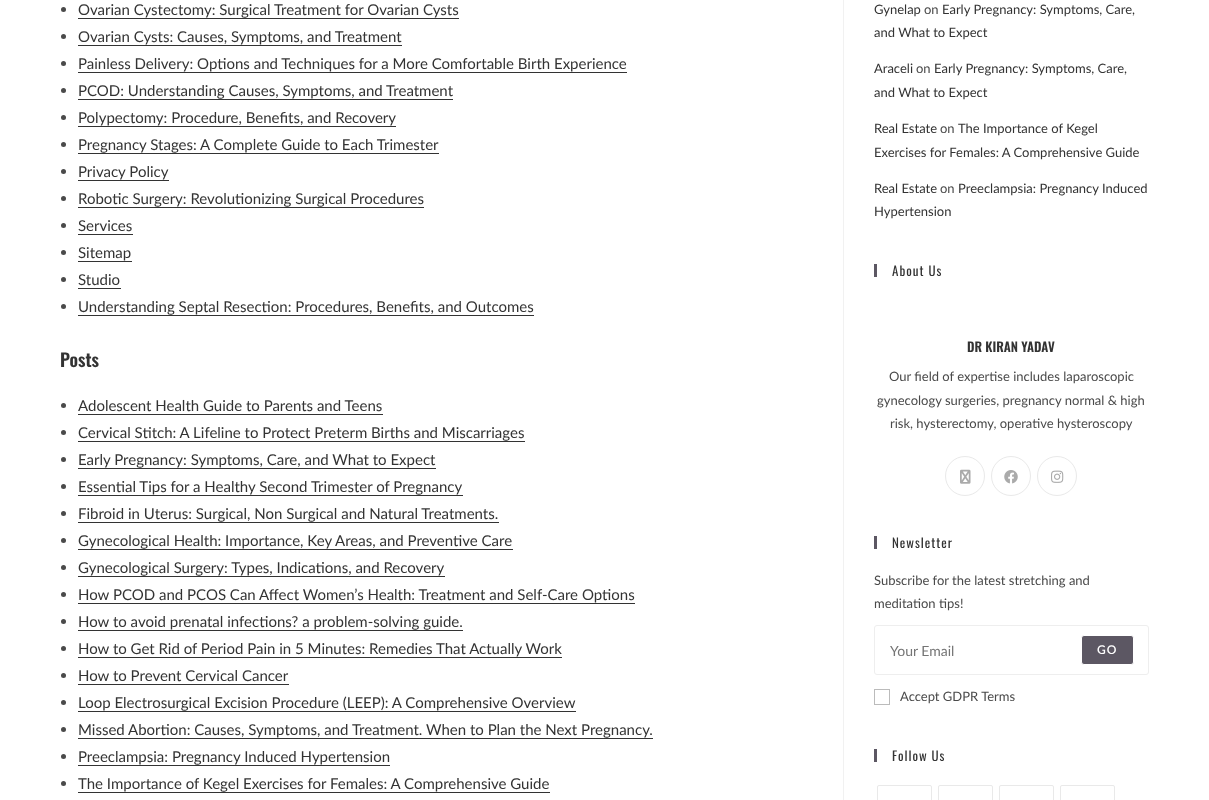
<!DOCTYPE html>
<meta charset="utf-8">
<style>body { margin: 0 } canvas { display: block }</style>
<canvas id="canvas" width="1209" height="800"></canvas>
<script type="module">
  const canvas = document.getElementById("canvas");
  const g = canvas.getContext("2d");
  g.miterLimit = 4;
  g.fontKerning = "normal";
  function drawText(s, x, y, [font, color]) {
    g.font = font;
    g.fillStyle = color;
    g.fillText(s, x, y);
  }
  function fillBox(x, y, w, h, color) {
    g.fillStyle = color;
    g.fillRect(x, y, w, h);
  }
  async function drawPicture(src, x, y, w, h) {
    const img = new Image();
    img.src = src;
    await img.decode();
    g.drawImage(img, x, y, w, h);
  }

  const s1 = ["15px Lato", "#333333"];
  const s2 = ["600 18px Oswald", "#333333"];
  const s3 = ["13px Lato", "#333333"];
  const s4 = ["13px Lato", "#4A4A4A"];
  const s5 = ["13px Oswald", "#333333"];
  const s6 = ["600 13px Oswald", "#333333"];
  const s7 = ["14px Lato", "#757575"];
  const s8 = ["600 12px Lato", "#FFFFFF"];

  fillBox(0, 0, 1209, 800, "#FFFFFF");
  fillBox(843, 0, 1, 800, "#F1F1F1");
  g.fillStyle = "#4A4A4A";
  g.beginPath();
  g.arc(63.5, 9.5, 2.5, 0, Math.PI * 2);
  g.fill();
  drawText("Ovarian Cystectomy: Surgical Treatment for Ovarian Cysts", 78, 15, s1);
  fillBox(78, 18, 381, 1, "#333333");
  g.fillStyle = "#4A4A4A";
  g.beginPath();
  g.arc(63.5, 36.5, 2.5, 0, Math.PI * 2);
  g.fill();
  drawText("Ovarian Cysts: Causes, Symptoms, and Treatment", 78, 42, s1);
  fillBox(78, 45, 324, 1, "#333333");
  g.fillStyle = "#4A4A4A";
  g.beginPath();
  g.arc(63.5, 63.5, 2.5, 0, Math.PI * 2);
  g.fill();
  drawText("Painless Delivery: Options and Techniques for a More Comfortable Birth Experience", 78, 69, s1);
  fillBox(78, 72, 549, 1, "#333333");
  g.fillStyle = "#4A4A4A";
  g.beginPath();
  g.arc(63.5, 90.5, 2.5, 0, Math.PI * 2);
  g.fill();
  drawText("PCOD: Understanding Causes, Symptoms, and Treatment", 78, 96, s1);
  fillBox(78, 99, 375, 1, "#333333");
  g.fillStyle = "#4A4A4A";
  g.beginPath();
  g.arc(63.5, 117.5, 2.5, 0, Math.PI * 2);
  g.fill();
  drawText("Polypectomy: Procedure, Benefits, and Recovery", 78, 123, s1);
  fillBox(78, 126, 318, 1, "#333333");
  g.fillStyle = "#4A4A4A";
  g.beginPath();
  g.arc(63.5, 144.5, 2.5, 0, Math.PI * 2);
  g.fill();
  drawText("Pregnancy Stages: A Complete Guide to Each Trimester", 78, 150, s1);
  fillBox(78, 153, 361, 1, "#333333");
  g.fillStyle = "#4A4A4A";
  g.beginPath();
  g.arc(63.5, 171.5, 2.5, 0, Math.PI * 2);
  g.fill();
  drawText("Privacy Policy", 78, 177, s1);
  fillBox(78, 180, 91, 1, "#333333");
  g.fillStyle = "#4A4A4A";
  g.beginPath();
  g.arc(63.5, 198.5, 2.5, 0, Math.PI * 2);
  g.fill();
  drawText("Robotic Surgery: Revolutionizing Surgical Procedures", 78, 204, s1);
  fillBox(78, 207, 346, 1, "#333333");
  g.fillStyle = "#4A4A4A";
  g.beginPath();
  g.arc(63.5, 225.5, 2.5, 0, Math.PI * 2);
  g.fill();
  drawText("Services", 78, 231, s1);
  fillBox(78, 234, 55, 1, "#333333");
  g.fillStyle = "#4A4A4A";
  g.beginPath();
  g.arc(63.5, 252.5, 2.5, 0, Math.PI * 2);
  g.fill();
  drawText("Sitemap", 78, 258, s1);
  fillBox(78, 261, 54, 1, "#333333");
  g.fillStyle = "#4A4A4A";
  g.beginPath();
  g.arc(63.5, 279.5, 2.5, 0, Math.PI * 2);
  g.fill();
  drawText("Studio", 78, 285, s1);
  fillBox(78, 288, 43, 1, "#333333");
  g.fillStyle = "#4A4A4A";
  g.beginPath();
  g.arc(63.5, 306.5, 2.5, 0, Math.PI * 2);
  g.fill();
  drawText("Understanding Septal Resection: Procedures, Benefits, and Outcomes", 78, 312, s1);
  fillBox(78, 315, 456, 1, "#333333");
  drawText("Posts", 60, 367, s2);
  g.fillStyle = "#4A4A4A";
  g.beginPath();
  g.arc(63.5, 405.5, 2.5, 0, Math.PI * 2);
  g.fill();
  drawText("Adolescent Health Guide to Parents and Teens", 78, 411, s1);
  fillBox(78, 414, 305, 1, "#333333");
  g.fillStyle = "#4A4A4A";
  g.beginPath();
  g.arc(63.5, 432.5, 2.5, 0, Math.PI * 2);
  g.fill();
  drawText("Cervical Stitch: A Lifeline to Protect Preterm Births and Miscarriages", 78, 438, s1);
  fillBox(78, 441, 447, 1, "#333333");
  g.fillStyle = "#4A4A4A";
  g.beginPath();
  g.arc(63.5, 459.5, 2.5, 0, Math.PI * 2);
  g.fill();
  drawText("Early Pregnancy: Symptoms, Care, and What to Expect", 78, 465, s1);
  fillBox(78, 468, 358, 1, "#333333");
  g.fillStyle = "#4A4A4A";
  g.beginPath();
  g.arc(63.5, 486.5, 2.5, 0, Math.PI * 2);
  g.fill();
  drawText("Essential Tips for a Healthy Second Trimester of Pregnancy", 78, 492, s1);
  fillBox(78, 495, 385, 1, "#333333");
  g.fillStyle = "#4A4A4A";
  g.beginPath();
  g.arc(63.5, 513.5, 2.5, 0, Math.PI * 2);
  g.fill();
  drawText("Fibroid in Uterus: Surgical, Non Surgical and Natural Treatments.", 78, 519, s1);
  fillBox(78, 522, 421, 1, "#333333");
  g.fillStyle = "#4A4A4A";
  g.beginPath();
  g.arc(63.5, 540.5, 2.5, 0, Math.PI * 2);
  g.fill();
  drawText("Gynecological Health: Importance, Key Areas, and Preventive Care", 78, 546, s1);
  fillBox(78, 549, 435, 1, "#333333");
  g.fillStyle = "#4A4A4A";
  g.beginPath();
  g.arc(63.5, 567.5, 2.5, 0, Math.PI * 2);
  g.fill();
  drawText("Gynecological Surgery: Types, Indications, and Recovery", 78, 573, s1);
  fillBox(78, 576, 367, 1, "#333333");
  g.fillStyle = "#4A4A4A";
  g.beginPath();
  g.arc(63.5, 594.5, 2.5, 0, Math.PI * 2);
  g.fill();
  drawText("How PCOD and PCOS Can Affect Women’s Health: Treatment and Self-Care Options", 78, 600, s1);
  fillBox(78, 603, 557, 1, "#333333");
  g.fillStyle = "#4A4A4A";
  g.beginPath();
  g.arc(63.5, 621.5, 2.5, 0, Math.PI * 2);
  g.fill();
  drawText("How to avoid prenatal infections? a problem-solving guide.", 78, 627, s1);
  fillBox(78, 630, 385, 1, "#333333");
  g.fillStyle = "#4A4A4A";
  g.beginPath();
  g.arc(63.5, 648.5, 2.5, 0, Math.PI * 2);
  g.fill();
  drawText("How to Get Rid of Period Pain in 5 Minutes: Remedies That Actually Work", 78, 654, s1);
  fillBox(78, 657, 484, 1, "#333333");
  g.fillStyle = "#4A4A4A";
  g.beginPath();
  g.arc(63.5, 675.5, 2.5, 0, Math.PI * 2);
  g.fill();
  drawText("How to Prevent Cervical Cancer", 78, 681, s1);
  fillBox(78, 684, 211, 1, "#333333");
  g.fillStyle = "#4A4A4A";
  g.beginPath();
  g.arc(63.5, 702.5, 2.5, 0, Math.PI * 2);
  g.fill();
  drawText("Loop Electrosurgical Excision Procedure (LEEP): A Comprehensive Overview", 78, 708, s1);
  fillBox(78, 711, 498, 1, "#333333");
  g.fillStyle = "#4A4A4A";
  g.beginPath();
  g.arc(63.5, 729.5, 2.5, 0, Math.PI * 2);
  g.fill();
  drawText("Missed Abortion: Causes, Symptoms, and Treatment. When to Plan the Next Pregnancy.", 78, 735, s1);
  fillBox(78, 738, 575, 1, "#333333");
  g.fillStyle = "#4A4A4A";
  g.beginPath();
  g.arc(63.5, 756.5, 2.5, 0, Math.PI * 2);
  g.fill();
  drawText("Preeclampsia: Pregnancy Induced Hypertension", 78, 762, s1);
  fillBox(78, 765, 312, 1, "#333333");
  g.fillStyle = "#4A4A4A";
  g.beginPath();
  g.arc(63.5, 783.5, 2.5, 0, Math.PI * 2);
  g.fill();
  drawText("The Importance of Kegel Exercises for Females: A Comprehensive Guide", 78, 789, s1);
  fillBox(78, 792, 472, 1, "#333333");
  drawText("Gynelap", 874, 14, s3);
  drawText("on", 924, 14, s4);
  drawText("Early Pregnancy: Symptoms, Care,", 942, 14, s3);
  drawText("and What to Expect", 874, 37, s3);
  drawText("Araceli", 874, 73, s3);
  drawText("on", 916, 73, s4);
  drawText("Early Pregnancy: Symptoms, Care,", 934, 73, s3);
  drawText("and What to Expect", 874, 97, s3);
  drawText("Real Estate", 874, 133, s3);
  drawText("on", 940, 133, s4);
  drawText("The Importance of Kegel", 958, 133, s3);
  drawText("Exercises for Females: A Comprehensive Guide", 874, 157, s3);
  drawText("Real Estate", 874, 193, s3);
  drawText("on", 940, 193, s4);
  drawText("Preeclampsia: Pregnancy Induced", 958, 193, s3);
  drawText("Hypertension", 874, 216, s3);
  fillBox(874, 264, 3, 13, "#5C5763");
  g.letterSpacing = "1px";
  drawText("About Us", 892, 276, s5);
  g.letterSpacing = "0px";
  drawText("DR KIRAN YADAV", 967, 352, s6);
  drawText("Our field of expertise includes laparoscopic", 889, 381, s4);
  drawText("gynecology surgeries, pregnancy normal & high", 877, 405, s4);
  drawText("risk, hysterectomy, operative hysteroscopy", 890, 428, s4);
  g.beginPath();
  g.arc(965, 476, 19.5, 0, Math.PI * 2);
  g.strokeStyle = "#E9E9E9";
  g.stroke();
  await drawPicture("pic1.png", 960, 469, 11, 15);
  g.beginPath();
  g.arc(1011, 476, 19.5, 0, Math.PI * 2);
  g.stroke();
  await drawPicture("pic2.png", 1004, 470, 14, 14);
  g.beginPath();
  g.arc(1057, 476, 19.5, 0, Math.PI * 2);
  g.stroke();
  await drawPicture("pic3.png", 1051, 470, 13, 13);
  fillBox(874, 536, 3, 13, "#5C5763");
  g.letterSpacing = "1px";
  drawText("Newsletter", 892, 548, s5);
  g.letterSpacing = "0px";
  drawText("Subscribe for the latest stretching and", 874, 585, s4);
  drawText("meditation tips!", 874, 608, s4);
  g.beginPath();
  g.roundRect(874.5, 625.5, 274, 49, 2.5);
  g.strokeStyle = "#EEEEEE";
  g.stroke();
  drawText("Your Email", 890, 656, s7);
  g.fillStyle = "#5C5763";
  g.beginPath();
  g.roundRect(1081.5, 635.5, 52, 29, 2.5);
  g.fill();
  g.strokeStyle = "#FFFFFF";
  g.stroke();
  g.letterSpacing = "1px";
  drawText("GO", 1097, 654, s8);
  g.strokeStyle = "#BBBBBB";
  g.strokeRect(874.5, 689.5, 15, 15);
  g.letterSpacing = "0px";
  drawText("Accept GDPR Terms", 900, 701, s4);
  fillBox(874, 749, 3, 13, "#5C5763");
  g.letterSpacing = "1px";
  drawText("Follow Us", 892, 761, s5);
  g.beginPath();
  g.roundRect(877.5, 785.5, 54, 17, 1.5);
  g.strokeStyle = "#E9E9E9";
  g.stroke();
  g.beginPath();
  g.roundRect(938.5, 785.5, 54, 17, 1.5);
  g.stroke();
  g.beginPath();
  g.roundRect(999.5, 785.5, 54, 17, 1.5);
  g.stroke();
  g.beginPath();
  g.roundRect(1060.5, 785.5, 54, 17, 1.5);
  g.stroke();
</script>
